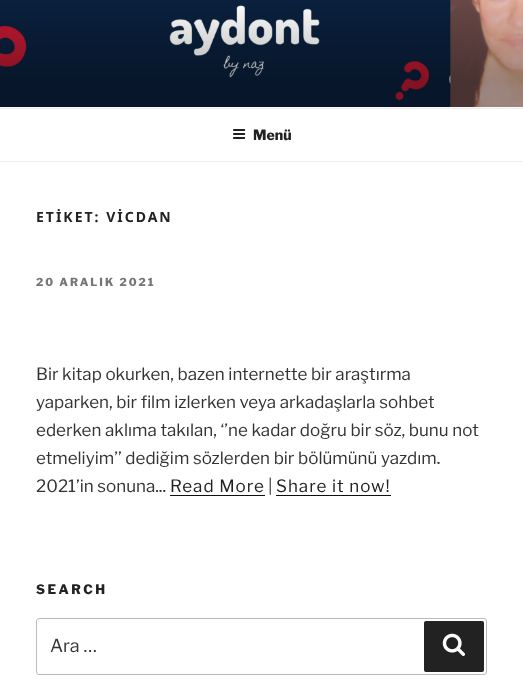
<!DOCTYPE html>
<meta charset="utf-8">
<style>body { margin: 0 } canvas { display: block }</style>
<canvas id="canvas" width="523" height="696"></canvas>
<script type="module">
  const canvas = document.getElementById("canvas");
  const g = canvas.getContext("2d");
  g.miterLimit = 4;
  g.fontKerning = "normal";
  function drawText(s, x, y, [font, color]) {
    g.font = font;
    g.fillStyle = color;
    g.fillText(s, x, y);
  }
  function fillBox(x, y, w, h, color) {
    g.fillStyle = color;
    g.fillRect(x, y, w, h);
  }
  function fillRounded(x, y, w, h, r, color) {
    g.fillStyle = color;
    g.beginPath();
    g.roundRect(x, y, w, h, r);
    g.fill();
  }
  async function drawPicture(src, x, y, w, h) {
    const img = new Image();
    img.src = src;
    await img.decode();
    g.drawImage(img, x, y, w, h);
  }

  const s1 = ["100 14px Libre Franklin", "#222222"];
  const s2 = ["bold 14px Noto Sans", "#222222"];
  const s3 = ["100 11px Libre Franklin", "#767676"];
  const s4 = ["100 17px 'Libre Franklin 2'", "#333333"];
  const s5 = ["100 17px 'Libre Franklin 2'", "#222222"];
  const s6 = ["100 13px Libre Franklin", "#222222"];
  const s7 = ["100 18px 'Libre Franklin 2'", "#333333"];

  fillBox(0, 0, 523, 696, "#FFFFFF");
  fillBox(0, 107, 523, 1, "#FAFAFA");
  await drawPicture("pic1.png", 0, 0, 523, 107);
  fillBox(0, 108, 523, 1, "#EEEEEE");
  fillBox(0, 161, 523, 1, "#EEEEEE");
  await drawPicture("pic2.png", 233, 129, 13, 10);
  drawText("Menü", 253, 140, s1);
  g.letterSpacing = "2px";
  drawText("ETİKET: VİCDAN", 36, 222, s2);
  drawText("20 ARALIK 2021", 36, 286, s3);
  g.letterSpacing = "0px";
  drawText("Bir kitap okurken, bazen internette bir araştırma", 36, 380, s4);
  drawText("yaparken, bir film izlerken veya arkadaşlarla sohbet", 36, 408, s4);
  drawText("ederken aklıma takılan, ‘’ne kadar doğru bir söz, bunu not", 36, 436, s4);
  drawText("etmeliyim’’ dediğim sözlerden bir bölümünü yazdım.", 36, 464, s4);
  drawText("2021’in sonuna...", 36, 492, s4);
  g.letterSpacing = "1px";
  drawText("Read More", 170, 492, s5);
  fillBox(170, 495, 95, 1, "#0F0F0F");
  g.letterSpacing = "0px";
  drawText("|", 268, 492, s4);
  g.letterSpacing = "1px";
  drawText("Share it now!", 276, 492, s5);
  fillBox(276, 495, 115, 1, "#0F0F0F");
  g.letterSpacing = "2.5px";
  drawText("SEARCH", 36, 594, s6);
  g.beginPath();
  g.roundRect(36.5, 618.5, 450, 56, 2.5);
  g.strokeStyle = "#BBBBBB";
  g.stroke();
  g.letterSpacing = "0px";
  drawText("Ara …", 50, 652, s7);
  fillRounded(424, 621, 60, 51, 2, "#222222");
  await drawPicture("pic3.png", 442, 633, 23, 23);
</script>
